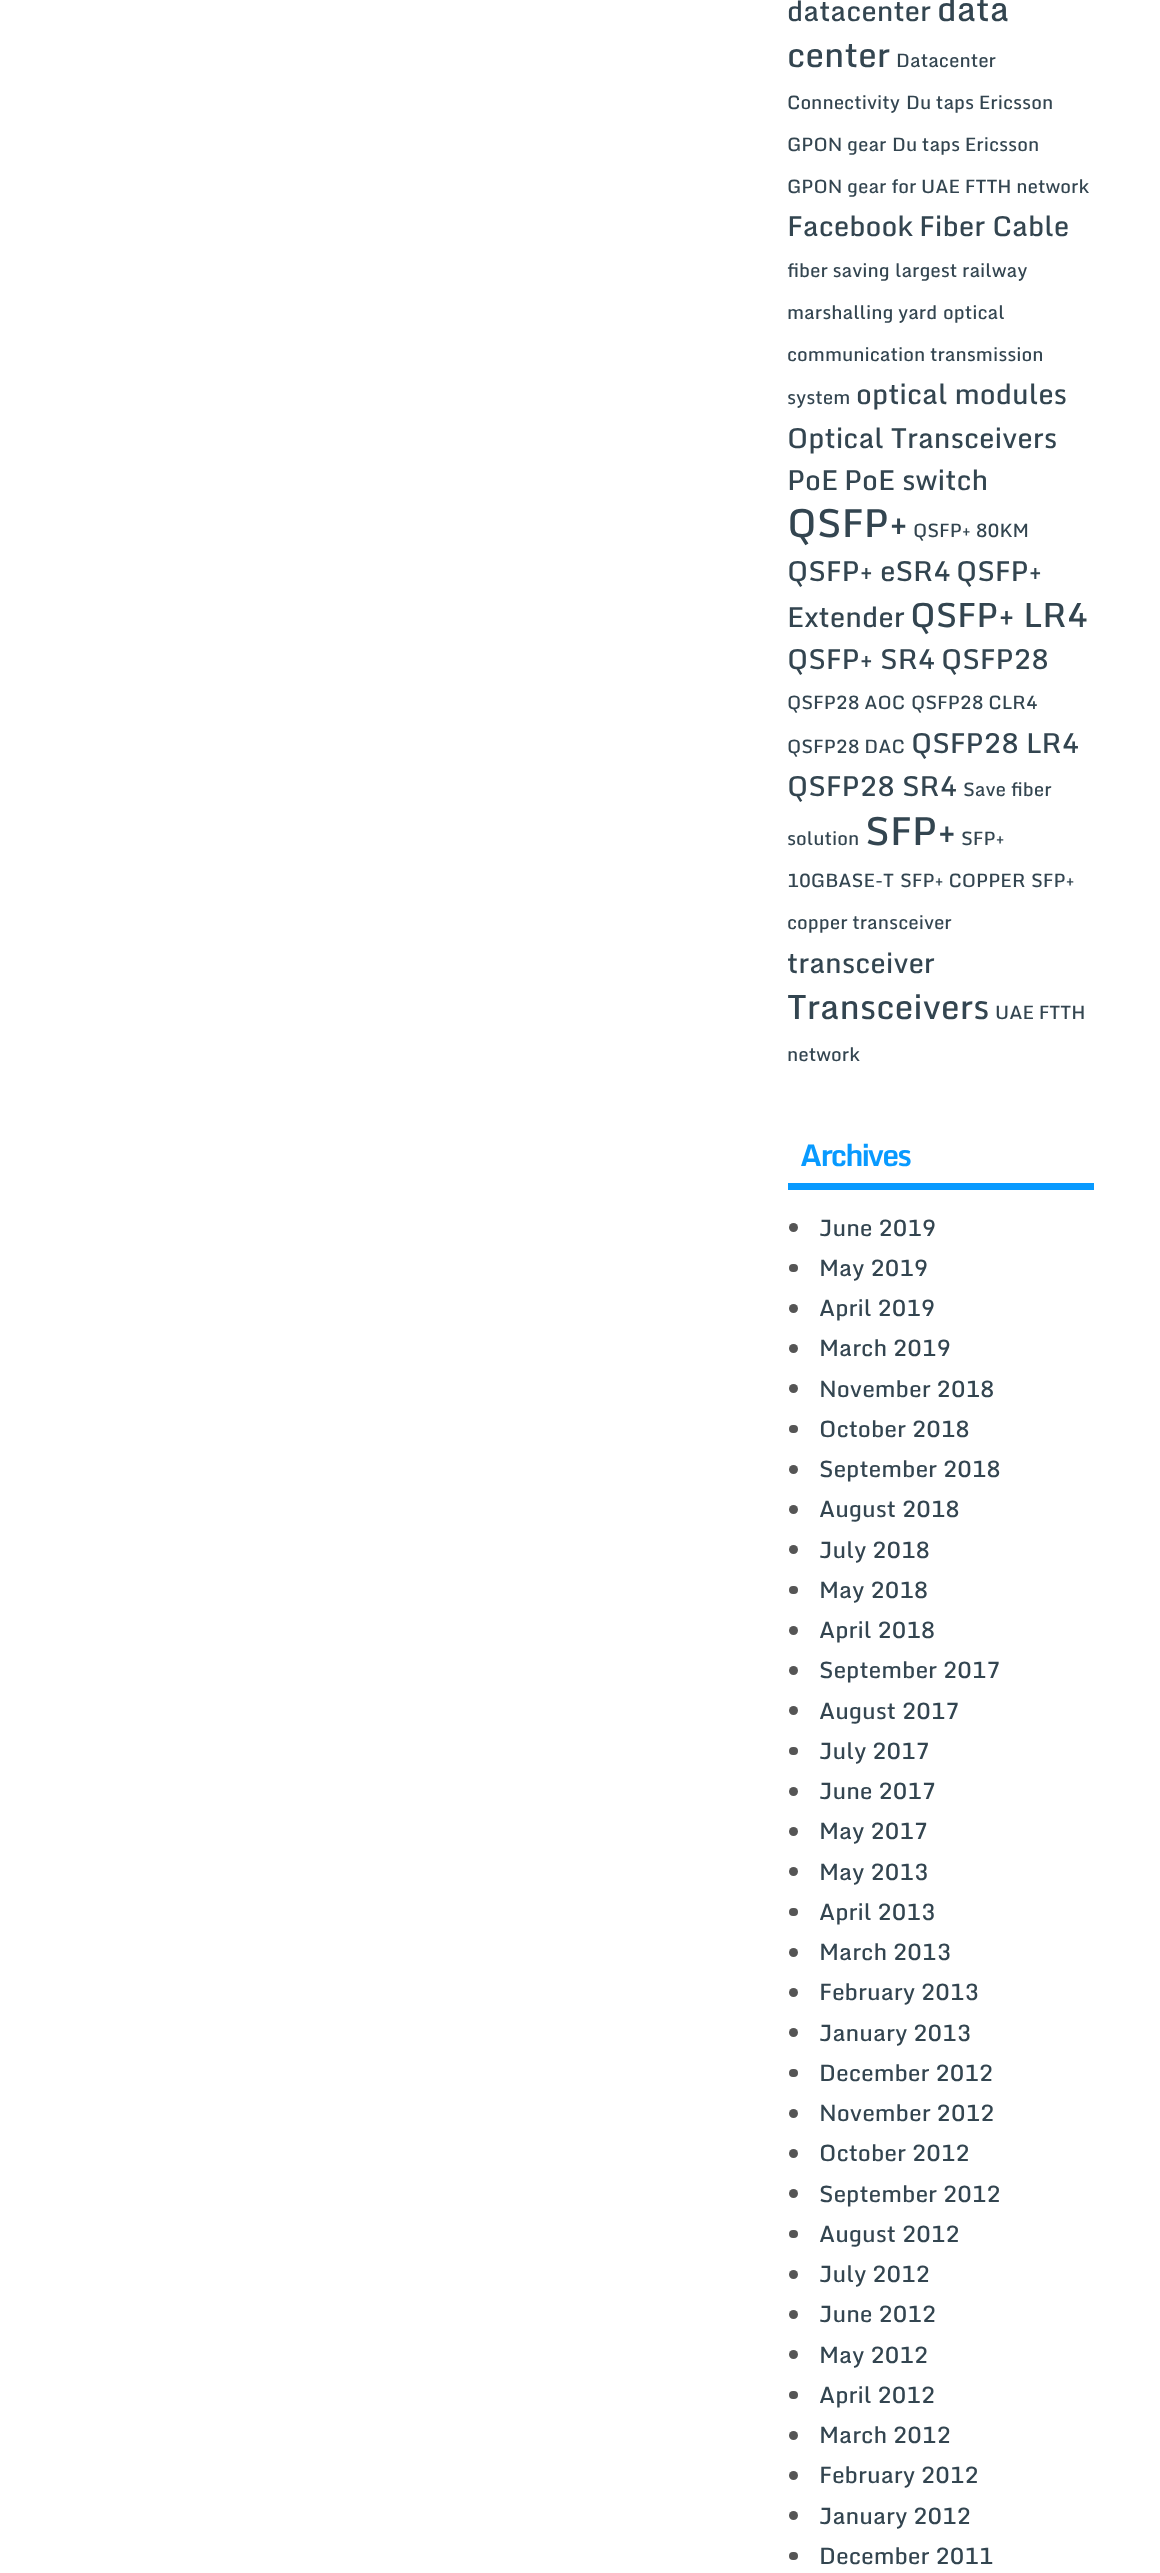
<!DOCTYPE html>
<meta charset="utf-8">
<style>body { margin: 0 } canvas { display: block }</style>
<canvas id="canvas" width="1160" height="2573"></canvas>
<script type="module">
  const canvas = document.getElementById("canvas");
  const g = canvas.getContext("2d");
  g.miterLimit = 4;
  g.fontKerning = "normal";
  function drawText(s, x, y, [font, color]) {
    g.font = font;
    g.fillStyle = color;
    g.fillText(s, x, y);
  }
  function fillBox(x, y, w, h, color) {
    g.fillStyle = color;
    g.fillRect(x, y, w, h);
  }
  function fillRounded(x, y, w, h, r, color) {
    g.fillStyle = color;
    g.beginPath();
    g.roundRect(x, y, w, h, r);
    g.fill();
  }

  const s1 = ["500 27.75px Monda", "#334550"];
  const s2 = ["500 33.75px Monda", "#334550"];
  const s3 = ["500 18.7px Monda", "#334550"];
  const s4 = ["500 39px Monda", "#334550"];
  const s5 = ["bold 30px Monda", "#089AFF"];
  const s6 = ["500 22.75px Monda", "#334550"];

  fillBox(0, 0, 1160, 2573, "#FFFFFF");
  drawText("datacenter", 787, 21, s1);
  drawText("data", 937, 21, s2);
  drawText("center", 787, 67, s2);
  drawText("Datacenter", 896, 67, s3);
  drawText("Connectivity", 787, 109, s3);
  drawText("Du taps Ericsson", 906, 109, s3);
  drawText("GPON gear", 787, 151, s3);
  drawText("Du taps Ericsson", 892, 151, s3);
  drawText("GPON gear for UAE FTTH network", 787, 193, s3);
  drawText("Facebook", 787, 236, s1);
  drawText("Fiber Cable", 919, 236, s1);
  drawText("fiber saving", 787, 277, s3);
  drawText("largest railway", 895, 277, s3);
  drawText("marshalling yard", 787, 319, s3);
  drawText("optical", 943, 319, s3);
  drawText("communication transmission", 787, 361, s3);
  drawText("system", 787, 404, s3);
  drawText("optical modules", 856, 404, s1);
  drawText("Optical Transceivers", 787, 448, s1);
  drawText("PoE", 787, 490, s1);
  drawText("PoE switch", 844, 490, s1);
  drawText("QSFP+", 787, 537, s4);
  drawText("QSFP+ 80KM", 913, 537, s3);
  drawText("QSFP+ eSR4", 787, 581, s1);
  drawText("QSFP+", 956, 581, s1);
  drawText("Extender", 787, 627, s1);
  drawText("QSFP+ LR4", 910, 627, s2);
  drawText("QSFP+ SR4", 787, 669, s1);
  drawText("QSFP28", 941, 669, s1);
  drawText("QSFP28 AOC", 787, 709, s3);
  drawText("QSFP28 CLR4", 911, 709, s3);
  drawText("QSFP28 DAC", 787, 753, s3);
  drawText("QSFP28 LR4", 911, 753, s1);
  drawText("QSFP28 SR4", 787, 796, s1);
  drawText("Save fiber", 963, 796, s3);
  drawText("solution", 787, 845, s3);
  drawText("SFP+", 865, 845, s4);
  drawText("SFP+", 961, 845, s3);
  drawText("10GBASE-T", 787, 887, s3);
  drawText("SFP+ COPPER", 900, 887, s3);
  drawText("SFP+", 1031, 887, s3);
  drawText("copper transceiver", 787, 929, s3);
  drawText("transceiver", 787, 973, s1);
  drawText("Transceivers", 787, 1019, s2);
  drawText("UAE FTTH", 995, 1019, s3);
  drawText("network", 787, 1061, s3);
  fillBox(788, 1183, 306, 7, "#089AFF");
  g.letterSpacing = "-1.75px";
  drawText("Archives", 800, 1166, s5);
  g.fillStyle = "#555555";
  g.beginPath();
  g.arc(793.5, 1227.5, 4.5, 0, Math.PI * 2);
  g.fill();
  g.letterSpacing = "0px";
  drawText("June 2019", 819, 1236, s6);
  fillRounded(789, 1264, 9, 8, 4, "#555555");
  drawText("May 2019", 819, 1276, s6);
  g.fillStyle = "#555555";
  g.beginPath();
  g.arc(793.5, 1308.5, 4.5, 0, Math.PI * 2);
  g.fill();
  drawText("April 2019", 819, 1316, s6);
  g.fillStyle = "#555555";
  g.beginPath();
  g.arc(793.5, 1348.5, 4.5, 0, Math.PI * 2);
  g.fill();
  drawText("March 2019", 819, 1356, s6);
  g.fillStyle = "#555555";
  g.beginPath();
  g.arc(793.5, 1388.5, 4.5, 0, Math.PI * 2);
  g.fill();
  drawText("November 2018", 819, 1397, s6);
  fillRounded(789, 1425, 9, 8, 4, "#555555");
  drawText("October 2018", 819, 1437, s6);
  g.fillStyle = "#555555";
  g.beginPath();
  g.arc(793.5, 1469.5, 4.5, 0, Math.PI * 2);
  g.fill();
  drawText("September 2018", 819, 1477, s6);
  g.fillStyle = "#555555";
  g.beginPath();
  g.arc(793.5, 1509.5, 4.5, 0, Math.PI * 2);
  g.fill();
  drawText("August 2018", 819, 1517, s6);
  g.fillStyle = "#555555";
  g.beginPath();
  g.arc(793.5, 1549.5, 4.5, 0, Math.PI * 2);
  g.fill();
  drawText("July 2018", 819, 1558, s6);
  fillRounded(789, 1586, 9, 8, 4, "#555555");
  drawText("May 2018", 819, 1598, s6);
  g.fillStyle = "#555555";
  g.beginPath();
  g.arc(793.5, 1630.5, 4.5, 0, Math.PI * 2);
  g.fill();
  drawText("April 2018", 819, 1638, s6);
  g.fillStyle = "#555555";
  g.beginPath();
  g.arc(793.5, 1670.5, 4.5, 0, Math.PI * 2);
  g.fill();
  drawText("September 2017", 819, 1678, s6);
  g.fillStyle = "#555555";
  g.beginPath();
  g.arc(793.5, 1710.5, 4.5, 0, Math.PI * 2);
  g.fill();
  drawText("August 2017", 819, 1719, s6);
  fillRounded(789, 1747, 9, 8, 4, "#555555");
  drawText("July 2017", 819, 1759, s6);
  g.fillStyle = "#555555";
  g.beginPath();
  g.arc(793.5, 1791.5, 4.5, 0, Math.PI * 2);
  g.fill();
  drawText("June 2017", 819, 1799, s6);
  g.fillStyle = "#555555";
  g.beginPath();
  g.arc(793.5, 1831.5, 4.5, 0, Math.PI * 2);
  g.fill();
  drawText("May 2017", 819, 1839, s6);
  g.fillStyle = "#555555";
  g.beginPath();
  g.arc(793.5, 1871.5, 4.5, 0, Math.PI * 2);
  g.fill();
  drawText("May 2013", 819, 1880, s6);
  fillRounded(789, 1908, 9, 8, 4, "#555555");
  drawText("April 2013", 819, 1920, s6);
  g.fillStyle = "#555555";
  g.beginPath();
  g.arc(793.5, 1952.5, 4.5, 0, Math.PI * 2);
  g.fill();
  drawText("March 2013", 819, 1960, s6);
  g.fillStyle = "#555555";
  g.beginPath();
  g.arc(793.5, 1992.5, 4.5, 0, Math.PI * 2);
  g.fill();
  drawText("February 2013", 819, 2000, s6);
  g.fillStyle = "#555555";
  g.beginPath();
  g.arc(793.5, 2032.5, 4.5, 0, Math.PI * 2);
  g.fill();
  drawText("January 2013", 819, 2041, s6);
  fillRounded(789, 2069, 9, 8, 4, "#555555");
  drawText("December 2012", 819, 2081, s6);
  g.fillStyle = "#555555";
  g.beginPath();
  g.arc(793.5, 2113.5, 4.5, 0, Math.PI * 2);
  g.fill();
  drawText("November 2012", 819, 2121, s6);
  g.fillStyle = "#555555";
  g.beginPath();
  g.arc(793.5, 2153.5, 4.5, 0, Math.PI * 2);
  g.fill();
  drawText("October 2012", 819, 2161, s6);
  g.fillStyle = "#555555";
  g.beginPath();
  g.arc(793.5, 2193.5, 4.5, 0, Math.PI * 2);
  g.fill();
  drawText("September 2012", 819, 2202, s6);
  fillRounded(789, 2230, 9, 8, 4, "#555555");
  drawText("August 2012", 819, 2242, s6);
  g.fillStyle = "#555555";
  g.beginPath();
  g.arc(793.5, 2274.5, 4.5, 0, Math.PI * 2);
  g.fill();
  drawText("July 2012", 819, 2282, s6);
  g.fillStyle = "#555555";
  g.beginPath();
  g.arc(793.5, 2314.5, 4.5, 0, Math.PI * 2);
  g.fill();
  drawText("June 2012", 819, 2322, s6);
  g.fillStyle = "#555555";
  g.beginPath();
  g.arc(793.5, 2354.5, 4.5, 0, Math.PI * 2);
  g.fill();
  drawText("May 2012", 819, 2363, s6);
  fillRounded(789, 2391, 9, 8, 4, "#555555");
  drawText("April 2012", 819, 2403, s6);
  g.fillStyle = "#555555";
  g.beginPath();
  g.arc(793.5, 2435.5, 4.5, 0, Math.PI * 2);
  g.fill();
  drawText("March 2012", 819, 2443, s6);
  g.fillStyle = "#555555";
  g.beginPath();
  g.arc(793.5, 2475.5, 4.5, 0, Math.PI * 2);
  g.fill();
  drawText("February 2012", 819, 2483, s6);
  g.fillStyle = "#555555";
  g.beginPath();
  g.arc(793.5, 2515.5, 4.5, 0, Math.PI * 2);
  g.fill();
  drawText("January 2012", 819, 2524, s6);
  fillRounded(789, 2552, 9, 8, 4, "#555555");
  drawText("December 2011", 819, 2564, s6);
</script>
